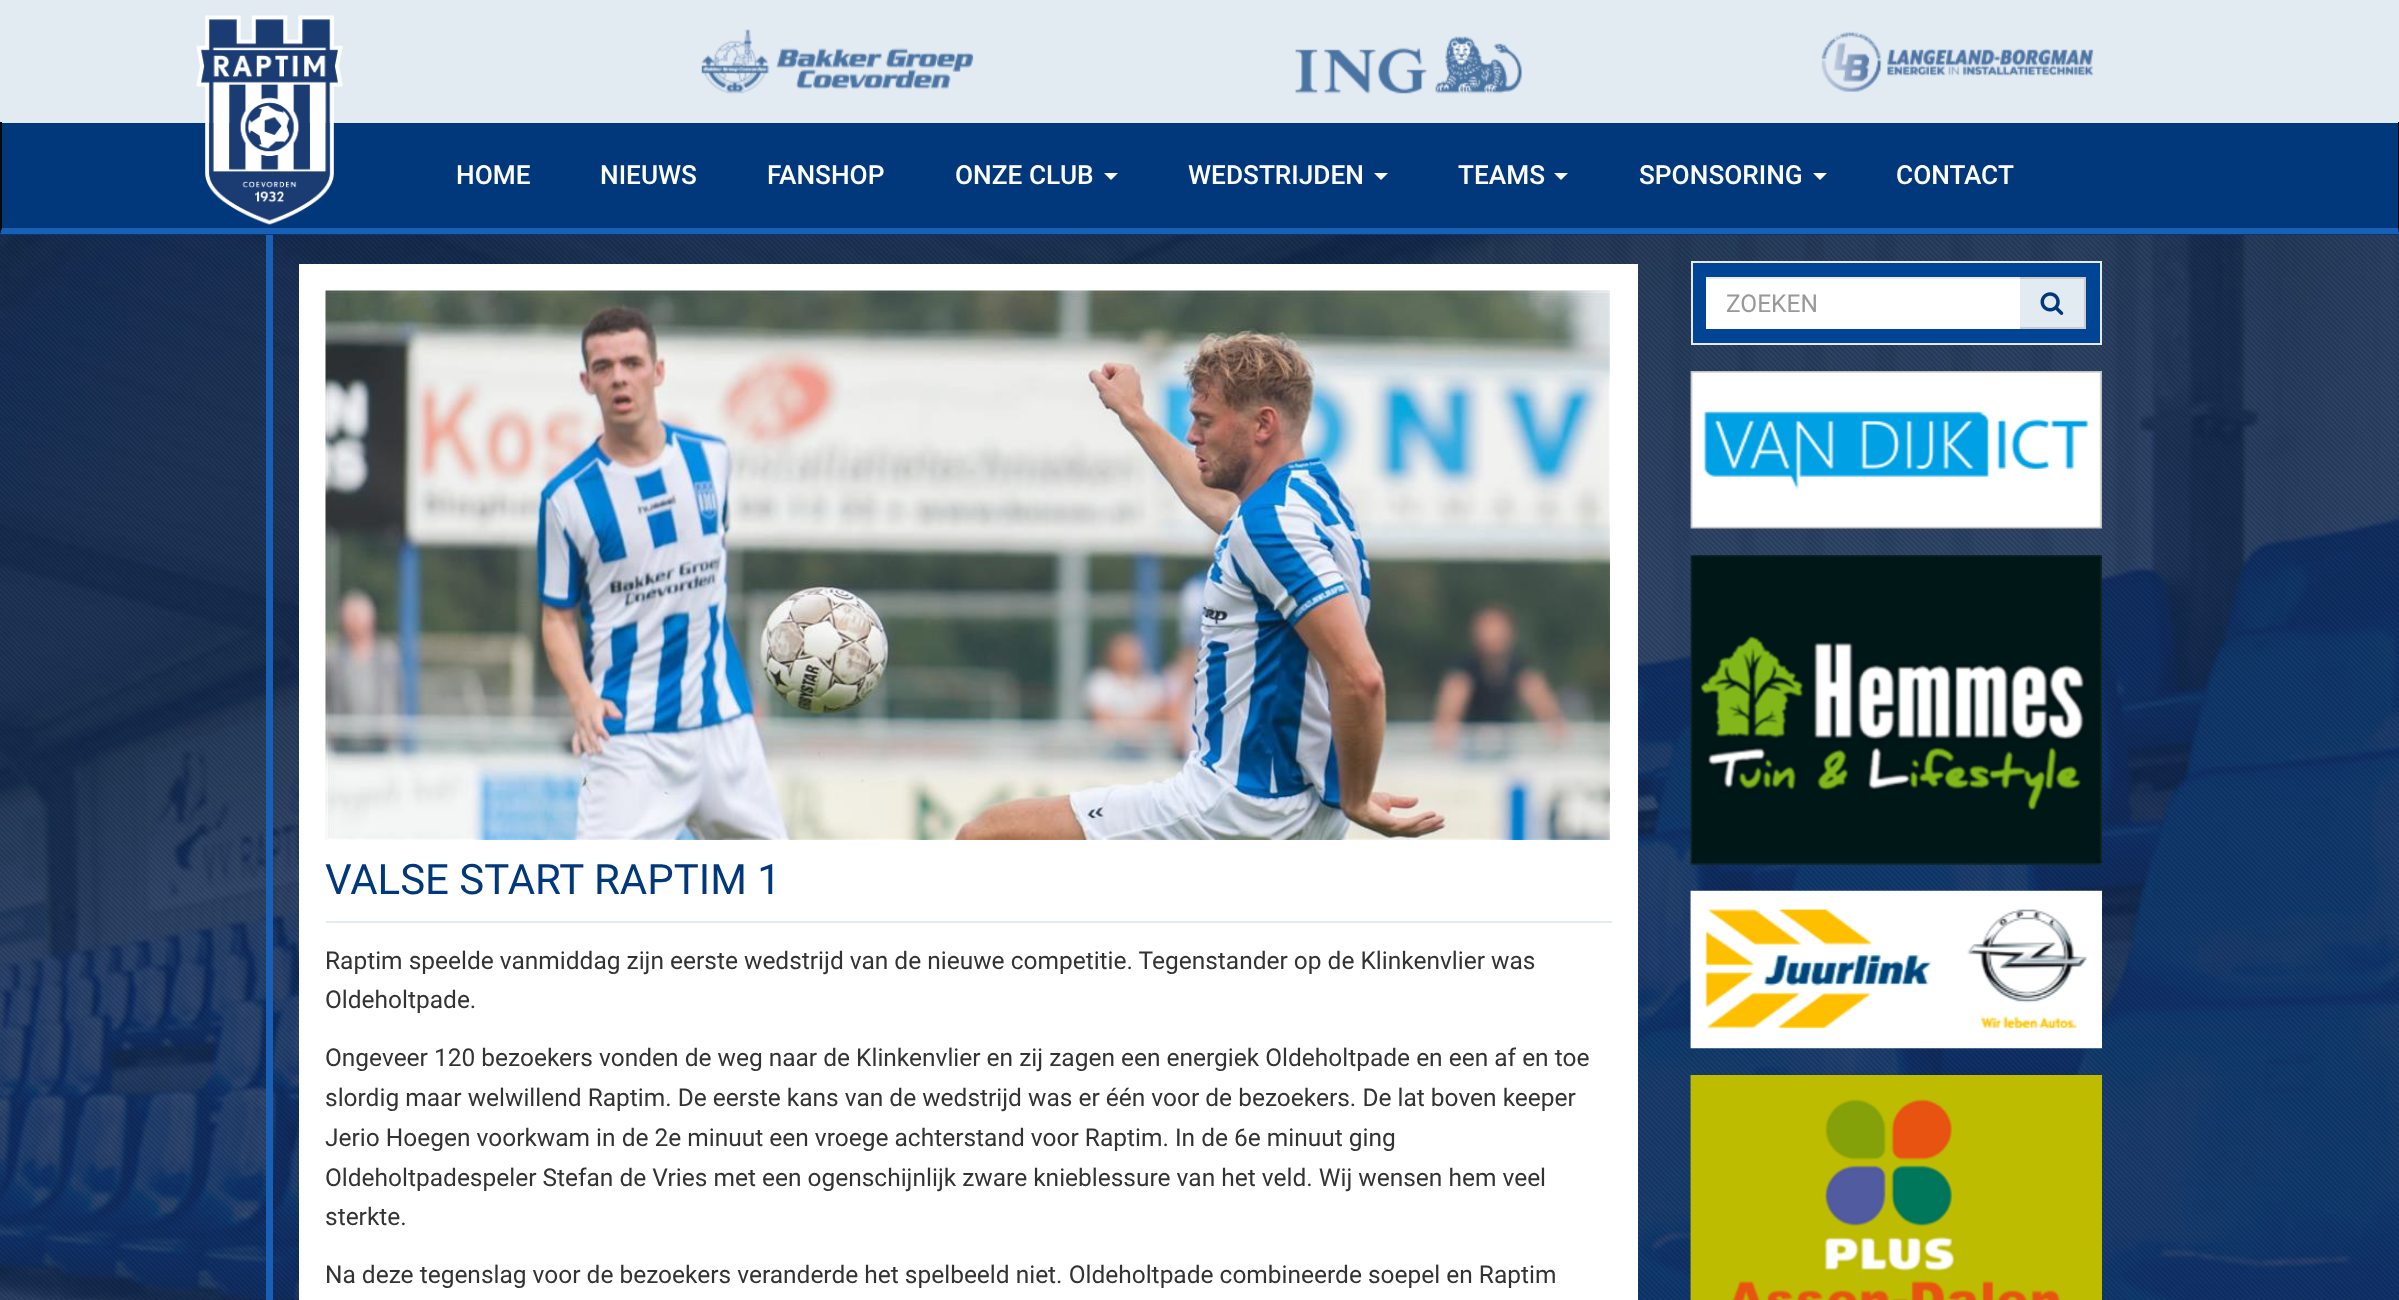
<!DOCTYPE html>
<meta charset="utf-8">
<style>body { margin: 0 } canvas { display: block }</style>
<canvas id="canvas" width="2399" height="1300"></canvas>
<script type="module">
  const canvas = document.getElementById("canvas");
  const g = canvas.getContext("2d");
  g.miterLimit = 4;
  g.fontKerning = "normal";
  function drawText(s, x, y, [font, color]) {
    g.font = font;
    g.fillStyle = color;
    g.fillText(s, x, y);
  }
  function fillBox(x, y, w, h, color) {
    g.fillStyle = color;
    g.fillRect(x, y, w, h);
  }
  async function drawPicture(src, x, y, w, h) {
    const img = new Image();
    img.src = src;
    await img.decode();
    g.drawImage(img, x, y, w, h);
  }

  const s1 = ["500 26.25px Roboto", "#FFFFFF"];
  const s2 = ["24.5px Roboto", "#999999"];
  const s3 = ["42px Roboto", "#00387B"];
  const s4 = ["24.5px Roboto", "#333333"];

  fillBox(0, 0, 2399, 1300, "#FFFFFF");
  fillBox(0, 0, 2399, 123, "#E2EAF2");
  fillBox(0, 123, 2399, 112, "#00387B");
  await drawPicture("pic1.png", 196, 15, 147, 210);
  await drawPicture("pic2.png", 701, 29, 273, 65);
  await drawPicture("pic3.png", 1295, 36, 227, 58);
  await drawPicture("pic4.png", 1821, 31, 273, 61);
  g.fillStyle = "#080808";
  g.beginPath();
  g.moveTo(2399, 122);
  g.lineTo(2399, 234);
  g.lineTo(2398, 228);
  g.lineTo(2398, 122);
  g.closePath();
  g.fill();
  g.fillStyle = "#1860B5";
  g.beginPath();
  g.moveTo(2399, 234);
  g.lineTo(0, 234);
  g.lineTo(2, 228);
  g.lineTo(2398, 228);
  g.closePath();
  g.fill();
  g.fillStyle = "#080808";
  g.beginPath();
  g.moveTo(0, 234);
  g.lineTo(0, 122);
  g.lineTo(2, 122);
  g.lineTo(2, 228);
  g.closePath();
  g.fill();
  drawText("HOME", 456, 184, s1);
  drawText("NIEUWS", 600, 184, s1);
  drawText("FANSHOP", 767, 184, s1);
  drawText("ONZE CLUB", 955, 184, s1);
  g.beginPath();
  g.moveTo(1104, 173);
  g.lineTo(1118, 173);
  g.lineTo(1111, 180);
  g.closePath();
  g.fill();
  drawText("WEDSTRIJDEN", 1188, 184, s1);
  g.beginPath();
  g.moveTo(1374, 173);
  g.lineTo(1388, 173);
  g.lineTo(1381, 180);
  g.closePath();
  g.fill();
  drawText("TEAMS", 1458, 184, s1);
  g.beginPath();
  g.moveTo(1554, 173);
  g.lineTo(1568, 173);
  g.lineTo(1561, 180);
  g.closePath();
  g.fill();
  drawText("SPONSORING", 1639, 184, s1);
  g.beginPath();
  g.moveTo(1813, 173);
  g.lineTo(1827, 173);
  g.lineTo(1820, 180);
  g.closePath();
  g.fill();
  drawText("CONTACT", 1896, 184, s1);
  await drawPicture("pic5.png", 0, 235, 2399, 1065);
  await drawPicture("pic6.png", 0, 235, 2399, 1065);
  fillBox(266, 235, 7, 1065, "#1860B5");
  g.fillStyle = "#004495";
  g.beginPath();
  g.rect(1692, 262, 409, 82);
  g.fill();
  g.strokeStyle = "#E2EAF2";
  g.lineWidth = 2;
  g.stroke();
  fillBox(1706, 279, 314, 50, "#FFFFFF");
  fillBox(1706, 277, 314, 2, "#ECECEC");
  drawText("ZOEKEN", 1726, 312, s2);
  fillBox(2020, 279, 64, 48, "#E2EAF2");
  fillBox(2020, 277, 66, 2, "#CCCCCC");
  fillBox(2084, 277, 2, 52, "#CCCCCC");
  fillBox(2020, 327, 66, 2, "#CCCCCC");
  await drawPicture("pic7.png", 2040, 292, 24, 23);
  fillBox(299, 264, 1339, 1036, "#FFFFFF");
  await drawPicture("pic8.png", 325, 290, 1285, 550);
  fillBox(326, 921, 1286, 2, "#E2EAF2");
  drawText("VALSE START RAPTIM 1", 325, 894, s3);
  drawText("Raptim speelde vanmiddag zijn eerste wedstrijd van de nieuwe competitie. Tegenstander op de Klinkenvlier was", 325, 969, s4);
  drawText("Oldeholtpade.", 325, 1008, s4);
  drawText("Ongeveer 120 bezoekers vonden de weg naar de Klinkenvlier en zij zagen een energiek Oldeholtpade en een af en toe", 325, 1066, s4);
  drawText("slordig maar welwillend Raptim. De eerste kans van de wedstrijd was er één voor de bezoekers. De lat boven keeper", 325, 1106, s4);
  drawText("Jerio Hoegen voorkwam in de 2e minuut een vroege achterstand voor Raptim. In de 6e minuut ging", 325, 1146, s4);
  drawText("Oldeholtpadespeler Stefan de Vries met een ogenschijnlijk zware knieblessure van het veld. Wij wensen hem veel", 325, 1186, s4);
  drawText("sterkte.", 325, 1225, s4);
  drawText("Na deze tegenslag voor de bezoekers veranderde het spelbeeld niet. Oldeholtpade combineerde soepel en Raptim", 325, 1283, s4);
  await drawPicture("pic9.png", 1690, 371, 412, 158);
  await drawPicture("pic10.png", 1690, 555, 412, 310);
  await drawPicture("pic11.png", 1690, 890, 412, 159);
  await drawPicture("pic12.png", 1690, 1075, 412, 225);
</script>
